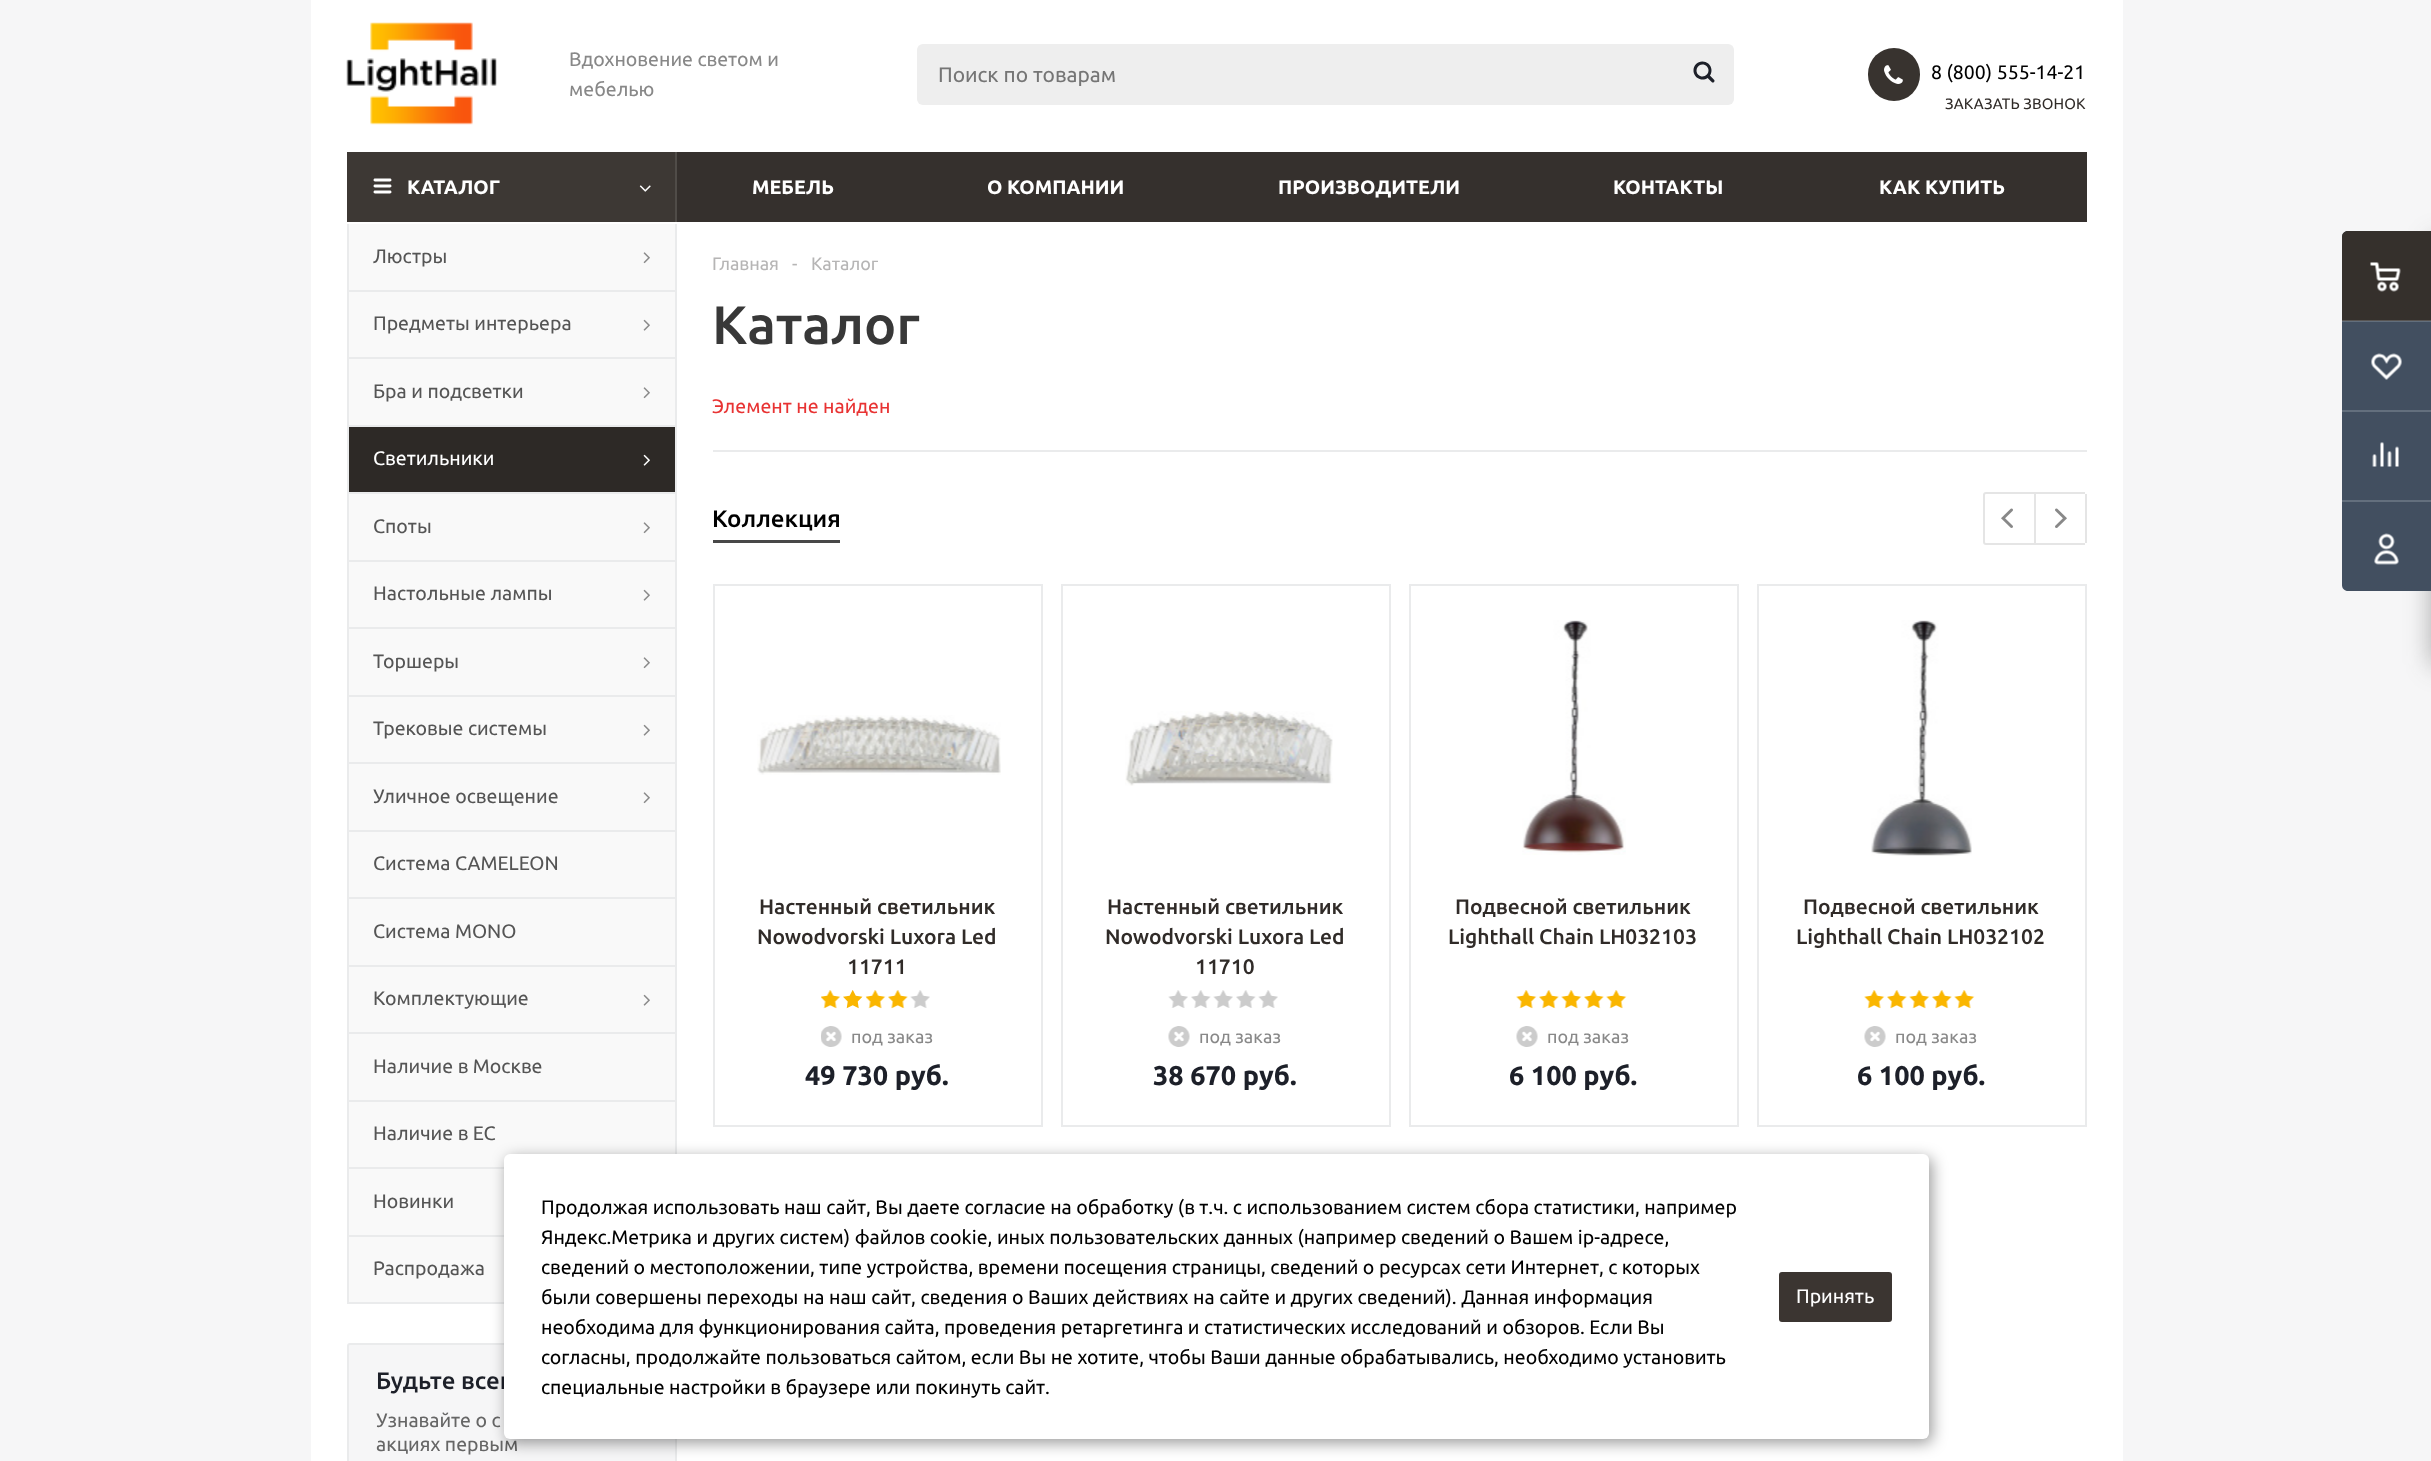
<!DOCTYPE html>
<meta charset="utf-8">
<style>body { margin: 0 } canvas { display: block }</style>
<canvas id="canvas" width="2431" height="1461"></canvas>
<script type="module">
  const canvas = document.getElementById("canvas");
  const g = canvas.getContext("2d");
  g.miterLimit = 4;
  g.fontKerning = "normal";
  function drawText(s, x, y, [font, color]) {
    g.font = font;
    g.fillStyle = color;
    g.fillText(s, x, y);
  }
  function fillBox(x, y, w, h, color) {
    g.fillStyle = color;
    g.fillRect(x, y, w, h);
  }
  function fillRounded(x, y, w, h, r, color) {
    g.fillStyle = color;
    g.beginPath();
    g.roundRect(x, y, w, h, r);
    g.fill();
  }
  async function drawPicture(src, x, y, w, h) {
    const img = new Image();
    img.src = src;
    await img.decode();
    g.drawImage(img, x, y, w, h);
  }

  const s1 = ["19.5px Ubuntu", "#888888"];
  const s2 = ["21px Ubuntu", "#757575"];
  const s3 = ["19.5px Ubuntu", "#000000"];
  const s4 = ["15px Ubuntu", "#302B28"];
  const s5 = ["bold 19.5px Ubuntu", "#FFFFFF"];
  const s6 = ["19.5px Ubuntu", "#555555"];
  const s7 = ["19.5px Ubuntu", "#FFFFFF"];
  const s8 = ["500 24px Ubuntu", "#1D2029"];
  const s9 = ["19.5px Ubuntu", "#666666"];
  const s10 = ["18px Ubuntu", "#B6B5B5"];
  const s11 = ["500 54px Ubuntu", "#383838"];
  const s12 = ["19.5px Ubuntu", "#E83333"];
  const s13 = ["500 24px Ubuntu", "#000000"];
  const s14 = ["500 21px Ubuntu", "#302B28"];
  const s15 = ["18px Ubuntu", "#888888"];
  const s16 = ["bold 27px Ubuntu", "#1D2029"];

  fillBox(0, 0, 2431, 1461, "#F6F6F7");
  fillBox(311, 0, 1812, 1461, "#FFFFFF");
  await drawPicture("pic1.png", 346, 22, 151, 103);
  drawText("Вдохновение светом и", 569, 66, s1);
  drawText("мебелью", 569, 96, s1);
  fillRounded(917, 44, 817, 61, 6, "#EEEEEE");
  drawText("Поиск по товарам", 938, 82, s2);
  await drawPicture("pic2.png", 1693, 61, 22, 22);
  fillRounded(1868, 48, 52, 53, 26, "#38332F");
  await drawPicture("pic3.png", 1884, 65, 19, 19);
  drawText("8 (800) 555-14-21", 1931, 79, s3);
  g.letterSpacing = "0.1px";
  drawText("ЗАКАЗАТЬ ЗВОНОК", 1945, 109, s4);
  g.fillStyle = "rgba(44, 44, 44, 0.4)";
  g.filter = "blur(13.5px)";
  g.beginPath();
  g.roundRect(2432, 240, 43, 425, 3);
  g.fill();
  g.filter = "none";
  g.fillStyle = "#424F60";
  g.beginPath();
  g.moveTo(2348, 231);
  g.lineTo(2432, 231);
  g.lineTo(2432, 591);
  g.lineTo(2348, 591);
  g.bezierCurveTo(2344.5, 591, 2342, 588.5, 2342, 585);
  g.lineTo(2342, 237);
  g.bezierCurveTo(2342, 233.5, 2344.5, 231, 2348, 231);
  g.closePath();
  g.fill();
  g.fillStyle = "#35302C";
  g.beginPath();
  g.moveTo(2348, 231);
  g.lineTo(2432, 231);
  g.lineTo(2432, 321);
  g.lineTo(2342, 321);
  g.lineTo(2342, 237);
  g.bezierCurveTo(2342, 233.5, 2344.5, 231, 2348, 231);
  g.closePath();
  g.fill();
  await drawPicture("pic4.png", 2370, 262, 31, 30);
  fillBox(2342, 320, 89, 2, "rgba(231, 237, 242, 0.2)");
  await drawPicture("pic5.png", 2371, 353, 31, 27);
  fillBox(2342, 410, 89, 2, "#636F7D");
  await drawPicture("pic6.png", 2372, 442, 27, 25);
  fillBox(2342, 500, 89, 2, "#636F7D");
  await drawPicture("pic7.png", 2374, 533, 25, 32);
  fillBox(677, 152, 1410, 70, "#35302D");
  fillBox(347, 152, 328, 70, "#3D3834");
  await drawPicture("pic8.png", 373, 178, 19, 16);
  g.letterSpacing = "0px";
  drawText("КАТАЛОГ", 407, 194, s5);
  fillBox(675, 152, 2, 70, "#504C48");
  await drawPicture("pic9.png", 639, 185, 12, 7);
  drawText("МЕБЕЛЬ", 752, 194, s5);
  drawText("О КОМПАНИИ", 987, 194, s5);
  drawText("ПРОИЗВОДИТЕЛИ", 1278, 194, s5);
  drawText("КОНТАКТЫ", 1613, 194, s5);
  drawText("КАК КУПИТЬ", 1879, 194, s5);
  fillBox(349, 224, 326, 66, "#F9F9F9");
  fillBox(675, 224, 2, 66, "#EAEBEC");
  fillBox(347, 224, 2, 66, "#EAEBEC");
  drawText("Люстры", 373, 263, s6);
  await drawPicture("pic10.png", 643, 252, 7, 12);
  fillBox(349, 292, 326, 65, "#F9F9F9");
  fillBox(347, 290, 330, 2, "#EAEBEC");
  fillBox(675, 290, 2, 67, "#EAEBEC");
  fillBox(347, 290, 2, 67, "#EAEBEC");
  drawText("Предметы интерьера", 373, 330, s6);
  await drawPicture("pic11.png", 643, 319, 7, 12);
  fillBox(349, 359, 326, 66, "#F9F9F9");
  fillBox(347, 357, 330, 2, "#EAEBEC");
  fillBox(675, 357, 2, 68, "#EAEBEC");
  fillBox(347, 357, 2, 68, "#EAEBEC");
  drawText("Бра и подсветки", 373, 398, s6);
  await drawPicture("pic10.png", 643, 387, 7, 12);
  fillBox(349, 427, 326, 65, "#2D2926");
  fillBox(347, 425, 330, 2, "#EAEBEC");
  fillBox(675, 425, 2, 67, "#EAEBEC");
  fillBox(347, 425, 2, 67, "#EAEBEC");
  drawText("Светильники", 373, 465, s7);
  await drawPicture("pic12.png", 643, 454, 7, 12);
  fillBox(349, 494, 326, 66, "#F9F9F9");
  fillBox(347, 492, 330, 2, "#EAEBEC");
  fillBox(675, 492, 2, 68, "#EAEBEC");
  fillBox(347, 492, 2, 68, "#EAEBEC");
  drawText("Споты", 373, 533, s6);
  await drawPicture("pic10.png", 643, 522, 7, 12);
  fillBox(349, 562, 326, 65, "#F9F9F9");
  fillBox(347, 560, 330, 2, "#EAEBEC");
  fillBox(675, 560, 2, 67, "#EAEBEC");
  fillBox(347, 560, 2, 67, "#EAEBEC");
  drawText("Настольные лампы", 373, 600, s6);
  await drawPicture("pic11.png", 643, 589, 7, 12);
  fillBox(349, 629, 326, 66, "#F9F9F9");
  fillBox(347, 627, 330, 2, "#EAEBEC");
  fillBox(675, 627, 2, 68, "#EAEBEC");
  fillBox(347, 627, 2, 68, "#EAEBEC");
  drawText("Торшеры", 373, 668, s6);
  await drawPicture("pic10.png", 643, 657, 7, 12);
  fillBox(349, 697, 326, 65, "#F9F9F9");
  fillBox(347, 695, 330, 2, "#EAEBEC");
  fillBox(675, 695, 2, 67, "#EAEBEC");
  fillBox(347, 695, 2, 67, "#EAEBEC");
  drawText("Трековые системы", 373, 735, s6);
  await drawPicture("pic11.png", 643, 724, 7, 12);
  fillBox(349, 764, 326, 66, "#F9F9F9");
  fillBox(347, 762, 330, 2, "#EAEBEC");
  fillBox(675, 762, 2, 68, "#EAEBEC");
  fillBox(347, 762, 2, 68, "#EAEBEC");
  drawText("Уличное освещение", 373, 803, s6);
  await drawPicture("pic10.png", 643, 792, 7, 12);
  fillBox(349, 832, 326, 65, "#F9F9F9");
  fillBox(347, 830, 330, 2, "#EAEBEC");
  fillBox(675, 830, 2, 67, "#EAEBEC");
  fillBox(347, 830, 2, 67, "#EAEBEC");
  drawText("Система CAMELEON", 373, 870, s6);
  fillBox(349, 899, 326, 66, "#F9F9F9");
  fillBox(347, 897, 330, 2, "#EAEBEC");
  fillBox(675, 897, 2, 68, "#EAEBEC");
  fillBox(347, 897, 2, 68, "#EAEBEC");
  drawText("Система MONO", 373, 938, s6);
  fillBox(349, 967, 326, 65, "#F9F9F9");
  fillBox(347, 965, 330, 2, "#EAEBEC");
  fillBox(675, 965, 2, 67, "#EAEBEC");
  fillBox(347, 965, 2, 67, "#EAEBEC");
  drawText("Комплектующие", 373, 1005, s6);
  await drawPicture("pic11.png", 643, 994, 7, 12);
  fillBox(349, 1034, 326, 66, "#F9F9F9");
  fillBox(347, 1032, 330, 2, "#EAEBEC");
  fillBox(675, 1032, 2, 68, "#EAEBEC");
  fillBox(347, 1032, 2, 68, "#EAEBEC");
  drawText("Наличие в Москве", 373, 1073, s6);
  fillBox(349, 1102, 326, 65, "#F9F9F9");
  fillBox(347, 1100, 330, 2, "#EAEBEC");
  fillBox(675, 1100, 2, 54, "#EAEBEC");
  fillBox(347, 1100, 2, 67, "#EAEBEC");
  drawText("Наличие в EC", 373, 1140, s6);
  fillBox(349, 1169, 155, 66, "#F9F9F9");
  fillBox(347, 1167, 157, 2, "#EAEBEC");
  fillBox(347, 1167, 2, 68, "#EAEBEC");
  drawText("Новинки", 373, 1208, s6);
  fillBox(349, 1237, 155, 65, "#F9F9F9");
  g.strokeStyle = "#EAEBEC";
  g.lineWidth = 2;
  g.strokeRect(348, 1236, 328, 67);
  drawText("Распродажа", 373, 1275, s6);
  g.fillStyle = "#F6F6F7";
  g.beginPath();
  g.moveTo(350, 1344);
  g.lineTo(674, 1344);
  g.bezierCurveTo(675, 1344, 676, 1345, 676, 1346);
  g.lineTo(676, 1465);
  g.lineTo(348, 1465);
  g.lineTo(348, 1346);
  g.bezierCurveTo(348, 1345, 349, 1344, 350, 1344);
  g.closePath();
  g.fill();
  g.stroke();
  drawText("Будьте всег", 376, 1389, s8);
  drawText("Узнавайте о с", 376, 1427, s9);
  drawText("акциях первым", 376, 1451, s9);
  drawText("Главная", 712, 270, s10);
  drawText("-", 792, 270, s10);
  drawText("Каталог", 811, 270, s10);
  drawText("Каталог", 712, 344, s11);
  drawText("Элемент не найден", 712, 413, s12);
  fillBox(713, 450, 1374, 2, "#EAEBEC");
  fillBox(713, 540, 127, 3, "#484848");
  drawText("Коллекция", 712, 527, s13);
  g.beginPath();
  g.roundRect(1984, 493, 51, 51, [2, 0, 0, 2]);
  g.strokeStyle = "#E5E5E5";
  g.stroke();
  await drawPicture("pic13.png", 2001, 508, 12, 20);
  fillBox(2036, 492, 49, 2, "#E5E5E5");
  fillBox(2085, 494, 2, 49, "#E5E5E5");
  fillBox(2036, 543, 49, 2, "#E5E5E5");
  await drawPicture("pic14.png", 2055, 508, 12, 20);
  g.strokeStyle = "#EAEBEC";
  g.strokeRect(714, 585, 328, 541);
  await drawPicture("pic15.png", 757, 715, 244, 60);
  drawText("Настенный светильник", 759, 914, s14);
  drawText("Nowodvorski Luxora Led", 757, 944, s14);
  drawText("11711", 847, 974, s14);
  await drawPicture("pic16.png", 821, 990, 20, 19);
  await drawPicture("pic17.png", 843, 990, 23, 19);
  await drawPicture("pic16.png", 866, 990, 20, 19);
  await drawPicture("pic18.png", 888, 990, 20, 19);
  await drawPicture("pic19.png", 910, 990, 20, 18);
  await drawPicture("pic20.png", 821, 1026, 21, 21);
  drawText("под заказ", 851, 1043, s15);
  drawText("49 730 руб.", 805, 1085, s16);
  g.strokeRect(1062, 585, 328, 541);
  await drawPicture("pic21.png", 1125, 711, 208, 75);
  drawText("Настенный светильник", 1107, 914, s14);
  drawText("Nowodvorski Luxora Led", 1105, 944, s14);
  drawText("11710", 1195, 974, s14);
  await drawPicture("pic19.png", 1168, 990, 20, 18);
  await drawPicture("pic22.png", 1191, 990, 20, 18);
  await drawPicture("pic19.png", 1213, 990, 20, 18);
  await drawPicture("pic22.png", 1236, 990, 20, 18);
  await drawPicture("pic19.png", 1258, 990, 20, 18);
  await drawPicture("pic23.png", 1168, 1026, 22, 21);
  drawText("под заказ", 1199, 1043, s15);
  drawText("38 670 руб.", 1153, 1085, s16);
  g.strokeRect(1410, 585, 328, 541);
  await drawPicture("pic24.png", 1522, 620, 104, 235);
  drawText("Подвесной светильник", 1455, 914, s14);
  drawText("Lighthall Сhain LH032103", 1448, 944, s14);
  await drawPicture("pic25.png", 1516, 990, 21, 19);
  await drawPicture("pic18.png", 1539, 990, 20, 19);
  await drawPicture("pic25.png", 1561, 990, 21, 19);
  await drawPicture("pic18.png", 1584, 990, 20, 19);
  await drawPicture("pic25.png", 1606, 990, 21, 19);
  await drawPicture("pic23.png", 1516, 1026, 22, 21);
  drawText("под заказ", 1547, 1043, s15);
  drawText("6 100 руб.", 1509, 1085, s16);
  g.strokeRect(1758, 585, 328, 541);
  await drawPicture("pic26.png", 1871, 620, 101, 236);
  drawText("Подвесной светильник", 1803, 914, s14);
  drawText("Lighthall Сhain LH032102", 1796, 944, s14);
  await drawPicture("pic25.png", 1864, 990, 21, 19);
  await drawPicture("pic18.png", 1887, 990, 20, 19);
  await drawPicture("pic25.png", 1909, 990, 21, 19);
  await drawPicture("pic18.png", 1932, 990, 20, 19);
  await drawPicture("pic25.png", 1954, 990, 21, 19);
  await drawPicture("pic23.png", 1864, 1026, 22, 21);
  drawText("под заказ", 1895, 1043, s15);
  drawText("6 100 руб.", 1857, 1085, s16);
  g.fillStyle = "rgba(0, 0, 0, 0.4)";
  g.filter = "blur(7.5px)";
  g.beginPath();
  g.roundRect(507, 1158, 1425, 285, 6);
  g.fill();
  g.filter = "none";
  fillRounded(504, 1154, 1425, 285, 6, "#FFFFFF");
  drawText("Продолжая использовать наш cайт, Вы даете согласие на обработку (в т.ч. с использованием систем сбора статистики, например", 541, 1214, s3);
  drawText("Яндекс.Метрика и других систем) файлов cookie, иных пользовательских данных (например сведений о Вашем ip-адресе,", 541, 1244, s3);
  drawText("сведений о местоположении, типе устройства, времени посещения страницы, сведений о ресурсах сети Интернет, с которых", 541, 1274, s3);
  drawText("были совершены переходы на наш сайт, сведения о Ваших действиях на сайте и других сведений). Данная информация", 541, 1304, s3);
  drawText("необходима для функционирования сайта, проведения ретаргетинга и статистических исследований и обзоров. Если Вы", 541, 1334, s3);
  drawText("согласны, продолжайте пользоваться сайтом, если Вы не хотите, чтобы Ваши данные обрабатывались, необходимо установить", 541, 1364, s3);
  drawText("специальные настройки в браузере или покинуть сайт.", 541, 1394, s3);
  fillRounded(1779, 1272, 113, 50, 3, "#3B3531");
  drawText("Принять", 1796, 1303, s7);
</script>
